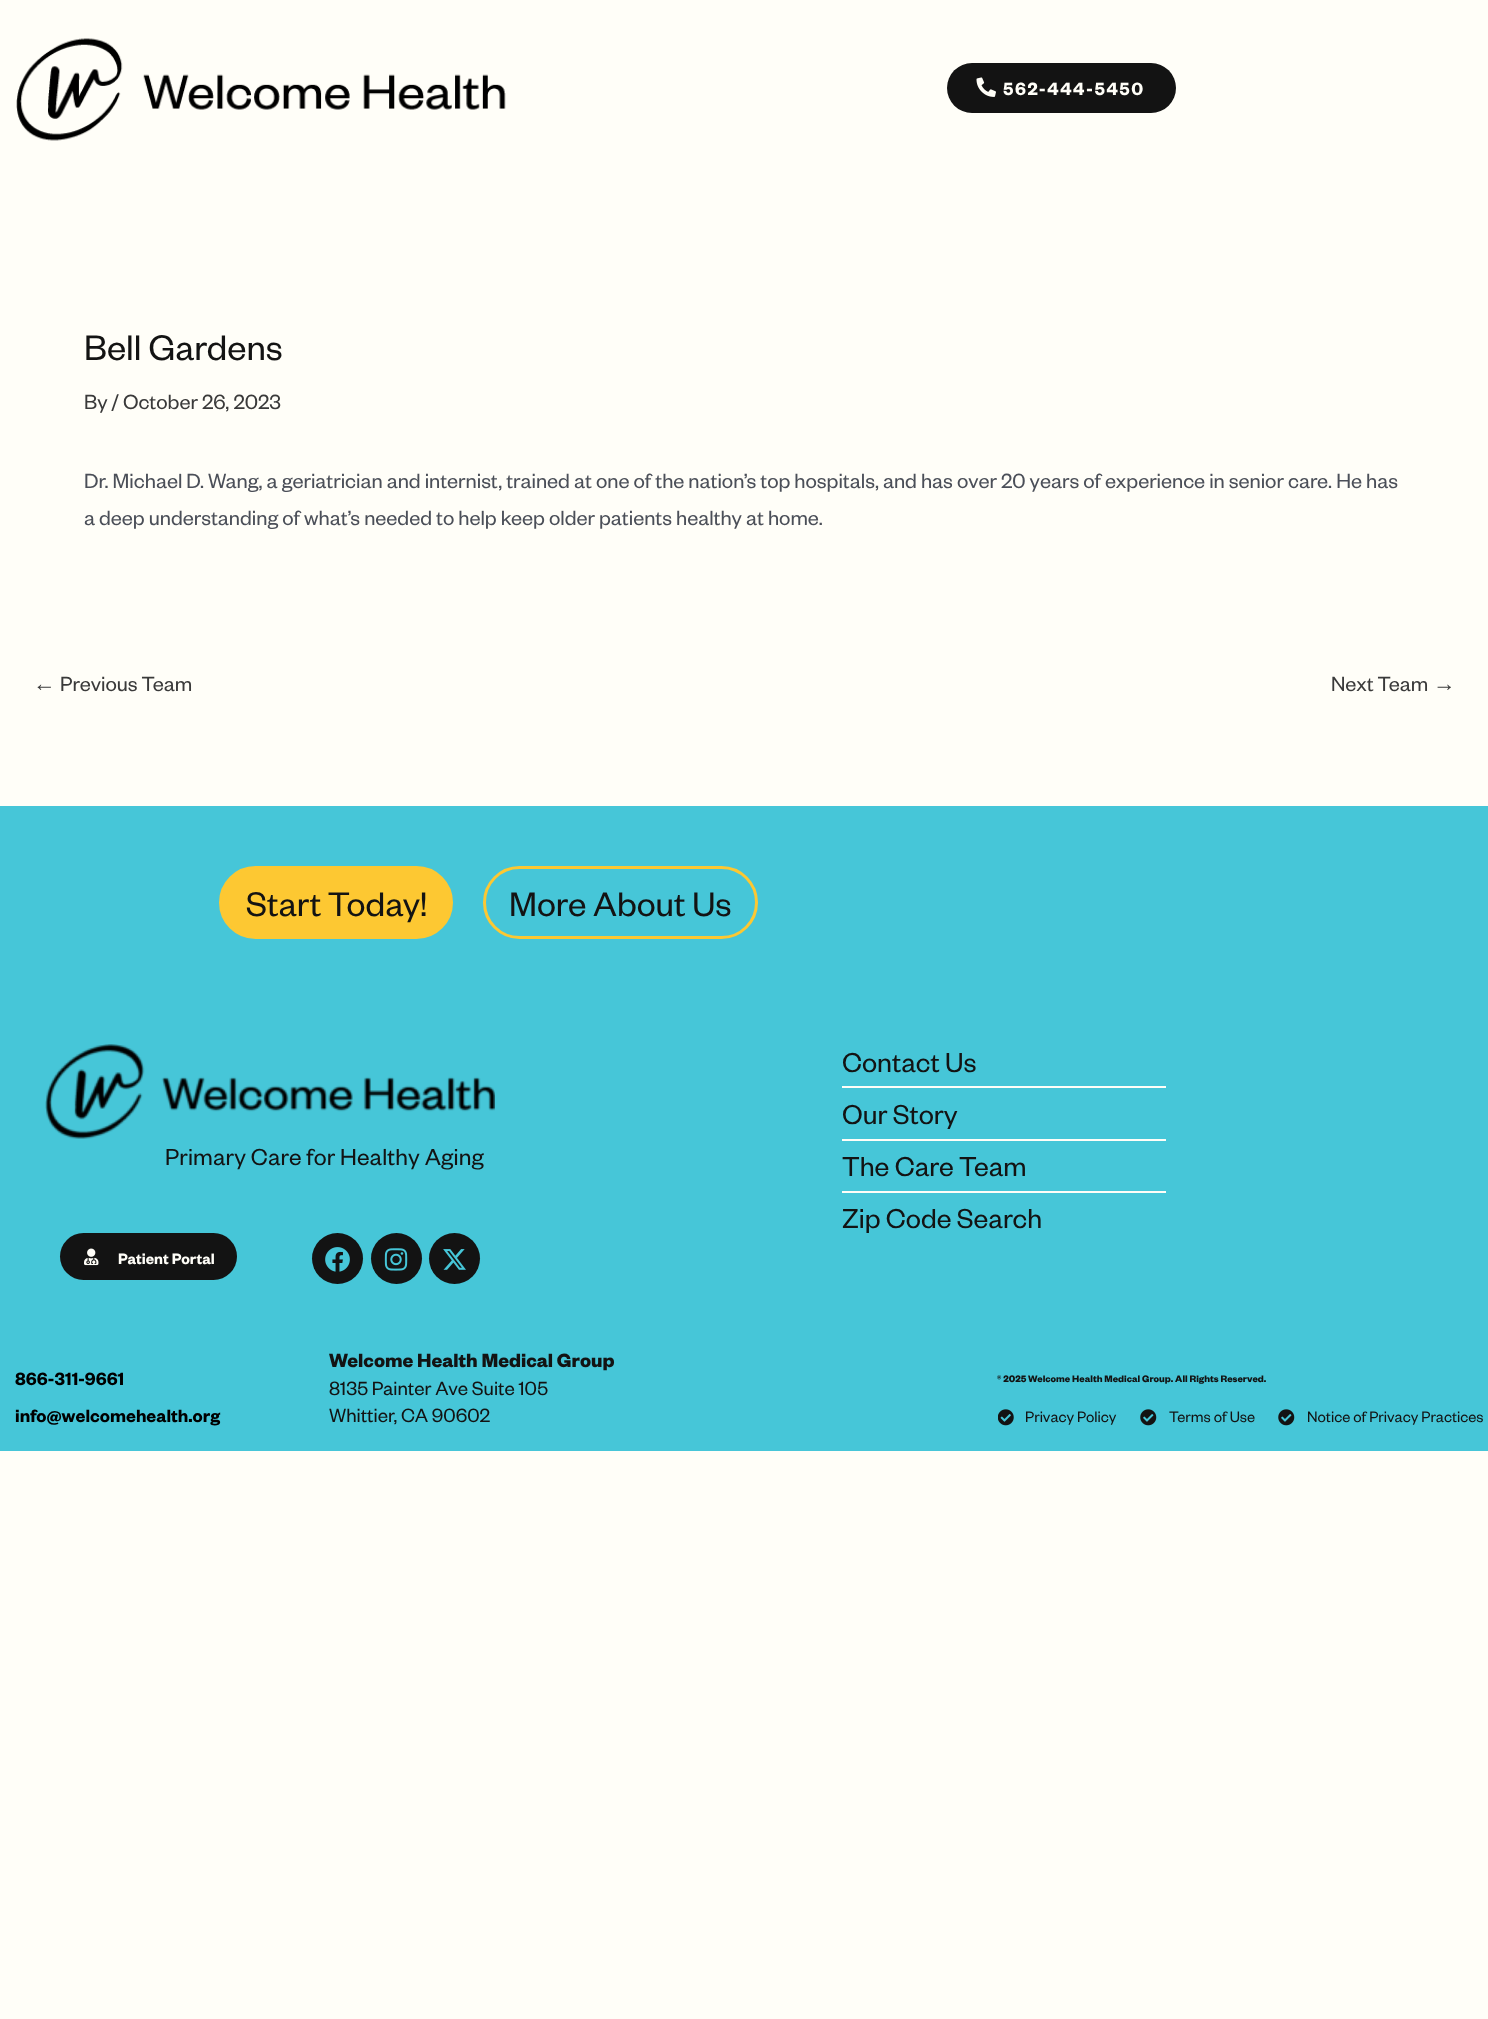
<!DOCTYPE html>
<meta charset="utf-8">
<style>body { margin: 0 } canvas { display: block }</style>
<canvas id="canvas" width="1488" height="2019"></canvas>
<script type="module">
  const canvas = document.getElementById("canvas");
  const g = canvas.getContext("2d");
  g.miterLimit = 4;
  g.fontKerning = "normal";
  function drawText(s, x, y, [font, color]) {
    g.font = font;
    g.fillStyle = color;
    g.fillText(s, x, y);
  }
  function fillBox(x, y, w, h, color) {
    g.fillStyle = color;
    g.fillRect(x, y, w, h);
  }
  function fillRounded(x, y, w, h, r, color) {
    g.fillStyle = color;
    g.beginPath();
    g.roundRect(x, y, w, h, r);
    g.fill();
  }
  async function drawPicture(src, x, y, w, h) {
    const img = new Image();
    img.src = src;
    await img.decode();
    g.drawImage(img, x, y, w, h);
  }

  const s1 = ["600 19.5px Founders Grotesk", "#FFFEF8"];
  const s2 = ["39px Founders Grotesk", "#131313"];
  const s3 = ["22.5px Founders Grotesk", "#3A3A3A"];
  const s4 = ["22.5px Founders Grotesk", "#4B4F58"];
  const s5 = ["22.5px Liberation Sans", "#3A3A3A"];
  const s6 = ["37.5px Founders Grotesk", "#131313"];
  const s7 = ["25.5px Founders Grotesk", "#131313"];
  const s8 = ["600 16.5px Founders Grotesk", "#FFFEF8"];
  const s9 = ["30px Founders Grotesk", "#131313"];
  const s10 = ["600 19.5px Founders Grotesk", "#000000"];
  const s11 = ["bold 21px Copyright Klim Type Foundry", "#131313"];
  const s12 = ["21px Founders Grotesk", "#131313"];
  const s13 = ["bold 10.5px Copyright Klim Type Foundry", "#131313"];
  const s14 = ["16.5px Founders Grotesk", "#131313"];

  fillBox(0, 0, 1488, 2019, "#FFFEF8");
  await drawPicture("pic1.png", 16, 38, 490, 103);
  fillRounded(947, 63, 229, 50, 25, "#131313");
  await drawPicture("pic2.png", 976, 77, 20, 20);
  g.letterSpacing = "1.6px";
  drawText("562-444-5450", 1003, 95, s1);
  g.letterSpacing = "0px";
  drawText("Bell Gardens", 84, 360, s2);
  drawText("By / October 26, 2023", 84, 409, s3);
  drawText("Dr. Michael D. Wang, a geriatrician and internist, trained at one of the nation’s top hospitals, and has over 20 years of experience in senior care. He has", 84, 488, s4);
  drawText("a deep understanding of what’s needed to help keep older patients healthy at home.", 84, 525, s4);
  drawText("←", 33, 691, s5);
  drawText("Previous Team", 60, 691, s3);
  drawText("Next Team", 1331, 691, s3);
  drawText("→", 1433, 691, s5);
  fillBox(0, 806, 1488, 645, "#46C6D8");
  g.fillStyle = "#FDC832";
  g.beginPath();
  g.roundRect(220.5, 867.5, 231, 70, 35);
  g.fill();
  g.strokeStyle = "#FDC832";
  g.lineWidth = 3;
  g.stroke();
  drawText("Start Today!", 246, 916, s6);
  g.beginPath();
  g.roundRect(484.5, 867.5, 272, 70, 35);
  g.stroke();
  drawText("More About Us", 509, 916, s6);
  await drawPicture("pic3.png", 45, 1044, 450, 95);
  g.letterSpacing = "0.15px";
  drawText("Primary Care for Healthy Aging", 165, 1165, s7);
  fillRounded(60, 1233, 177, 47, 23.5, "#131313");
  await drawPicture("pic4.png", 84, 1248, 15, 18);
  g.letterSpacing = "0px";
  drawText("Patient Portal", 118, 1264, s8);
  g.fillStyle = "#131313";
  g.beginPath();
  g.arc(337.5, 1258.5, 25.5, 0, Math.PI * 2);
  g.fill();
  await drawPicture("pic5.png", 325, 1247, 25, 25);
  g.beginPath();
  g.arc(396.5, 1258.5, 25.5, 0, Math.PI * 2);
  g.fill();
  await drawPicture("pic6.png", 384, 1248, 24, 23);
  g.beginPath();
  g.arc(454.5, 1258.5, 25.5, 0, Math.PI * 2);
  g.fill();
  await drawPicture("pic7.png", 443, 1249, 23, 21);
  drawText("Contact Us", 842, 1072, s9);
  fillBox(842, 1086, 324, 2, "#FFFEF8");
  drawText("Our Story", 842, 1124, s9);
  fillBox(842, 1139, 324, 2, "#FFFEF8");
  drawText("The Care Team", 842, 1176, s9);
  fillBox(842, 1191, 324, 2, "#FFFEF8");
  drawText("Zip Code Search", 842, 1228, s9);
  drawText("866-311-9661", 15, 1385, s10);
  drawText("info@welcomehealth.org", 15, 1422, s10);
  drawText("Welcome Health Medical Group", 329, 1367, s11);
  drawText("8135 Painter Ave Suite 105", 329, 1395, s12);
  drawText("Whittier, CA 90602", 329, 1422, s12);
  drawText("® 2025 Welcome Health Medical Group. All Rights Reserved.", 997, 1382, s13);
  await drawPicture("pic8.png", 998, 1409, 16, 17);
  drawText("Privacy Policy", 1025, 1422, s14);
  await drawPicture("pic9.png", 1140, 1409, 17, 17);
  drawText("Terms of Use", 1169, 1422, s14);
  await drawPicture("pic9.png", 1278, 1409, 17, 17);
  drawText("Notice of Privacy Practices", 1307, 1422, s14);
</script>
